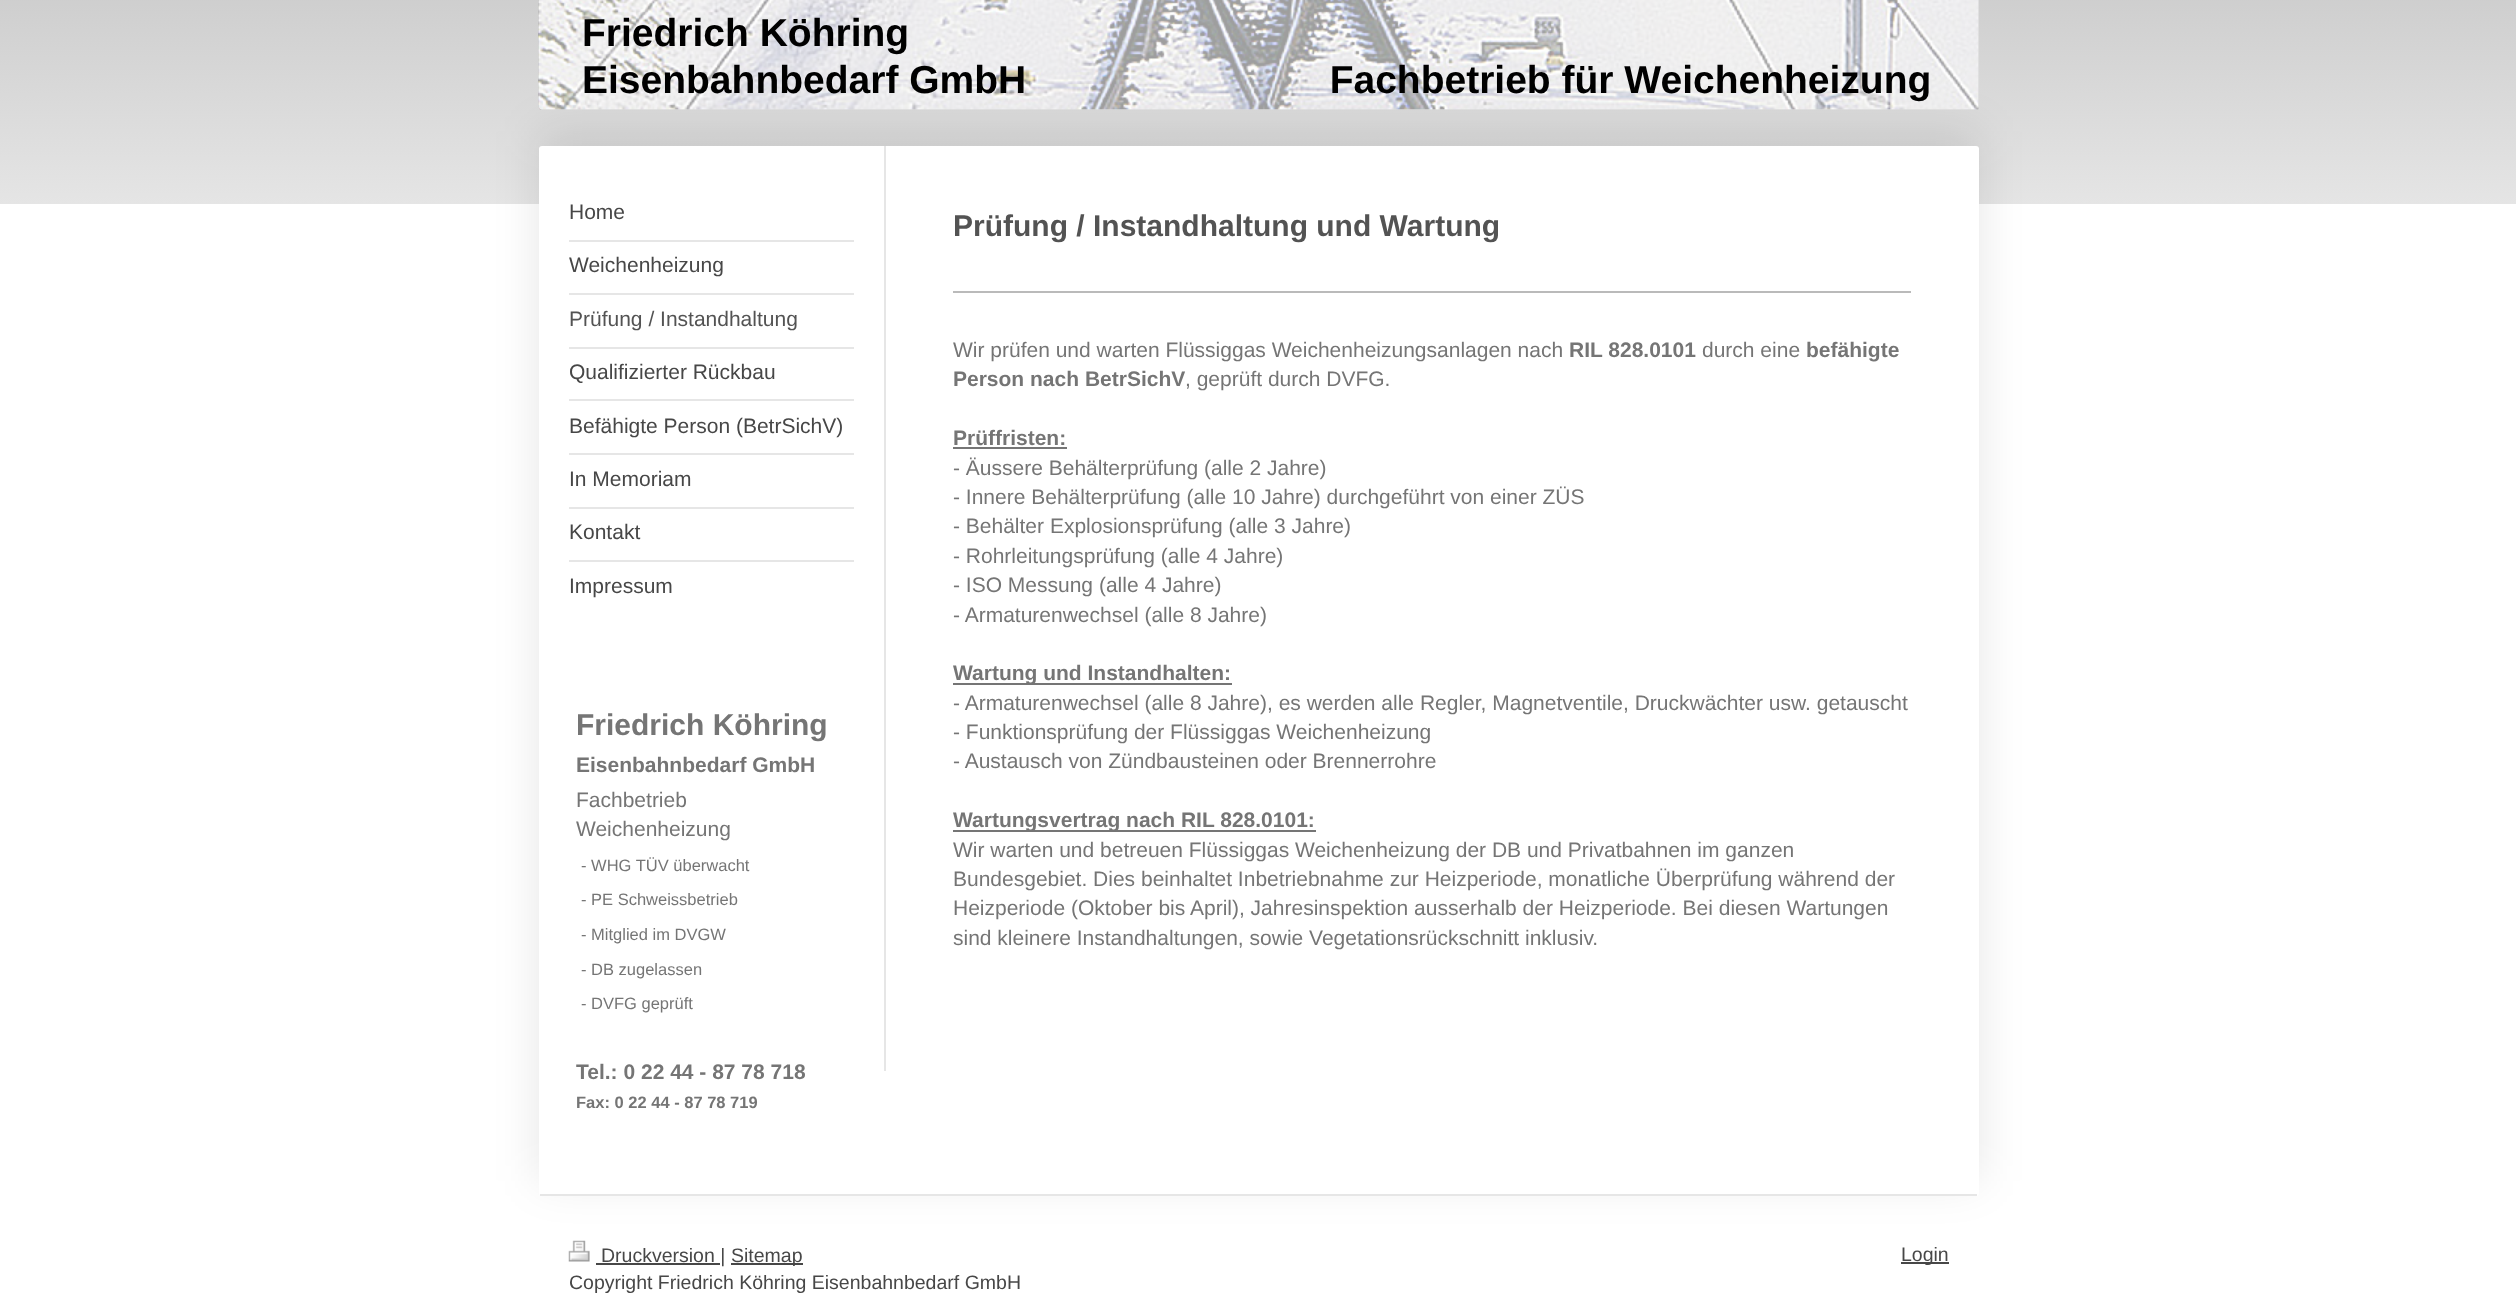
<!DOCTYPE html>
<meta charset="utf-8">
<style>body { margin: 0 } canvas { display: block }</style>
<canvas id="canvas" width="2516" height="1305"></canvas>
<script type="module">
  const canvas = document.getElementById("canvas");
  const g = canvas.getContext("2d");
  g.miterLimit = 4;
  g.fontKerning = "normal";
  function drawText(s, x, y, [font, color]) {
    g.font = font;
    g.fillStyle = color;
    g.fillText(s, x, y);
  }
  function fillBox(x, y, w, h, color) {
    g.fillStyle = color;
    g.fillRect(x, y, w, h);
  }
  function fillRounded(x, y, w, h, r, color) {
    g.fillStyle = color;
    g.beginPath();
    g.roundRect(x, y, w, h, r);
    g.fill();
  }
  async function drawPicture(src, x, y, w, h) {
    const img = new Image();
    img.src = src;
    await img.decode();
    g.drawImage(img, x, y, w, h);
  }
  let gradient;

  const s1 = ["bold 39px Liberation Sans", "#000000"];
  const s2 = ["21px Liberation Sans", "#474747"];
  const s3 = ["21px Liberation Sans", "#535353"];
  const s4 = ["bold 30px Liberation Sans", "#535353"];
  const s5 = ["21px Liberation Sans", "#757575"];
  const s6 = ["bold 21px Liberation Sans", "#757575"];
  const s7 = ["bold 30px Liberation Sans", "#757575"];
  const s8 = ["16.5px Liberation Sans", "#757575"];
  const s9 = ["bold 16.5px Liberation Sans", "#757575"];
  const s10 = ["19.5px Liberation Sans", "#474747"];

  fillBox(0, 0, 2516, 1305, "#FFFFFF");
  gradient = g.createLinearGradient(0, 204, 0, -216);
  gradient.addColorStop(0, "#E5E5E5");
  gradient.addColorStop(1, "#B7B7B7");
  g.fillStyle = gradient;
  g.fillRect(0, 0, 2516, 204);
  fillRounded(539, -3, 1440, 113, 3, "#A0A0A0");
  await drawPicture("pic1.png", 538, 0, 1441, 110);
  g.fillStyle = "rgba(0, 0, 0, 0.1)";
  g.filter = "blur(22.5px)";
  g.beginPath();
  g.roundRect(539, 131, 1440, 1050, 3);
  g.fill();
  g.filter = "none";
  g.fillStyle = "rgba(255, 255, 255, 0.62)";
  g.beginPath();
  g.moveTo(539, -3);
  g.lineTo(1979, -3);
  g.lineTo(1979, 107);
  g.bezierCurveTo(1979, 108.5, 1977.5, 110, 1976, 110);
  g.lineTo(542, 110);
  g.bezierCurveTo(540.5, 110, 539, 108.5, 539, 107);
  g.closePath();
  g.fill();
  drawText("Friedrich Köhring", 582, 46, s1);
  drawText("Eisenbahnbedarf GmbH                            Fachbetrieb für Weichenheizung", 582, 93, s1);
  fillRounded(539, 146, 1440, 1050, 3, "#FFFFFF");
  fillBox(540, 1194, 1437, 2, "#E6E6E6");
  fillBox(569, 240, 285, 2, "#E6E6E6");
  drawText("Home", 569, 219, s2);
  fillBox(569, 293, 285, 2, "#E6E6E6");
  drawText("Weichenheizung", 569, 272, s2);
  fillBox(569, 347, 285, 2, "#E6E6E6");
  drawText("Prüfung / Instandhaltung", 569, 326, s3);
  fillBox(569, 399, 285, 2, "#E6E6E6");
  drawText("Qualifizierter Rückbau", 569, 379, s2);
  fillBox(569, 453, 285, 2, "#E6E6E6");
  drawText("Befähigte Person (BetrSichV)", 569, 433, s2);
  fillBox(569, 507, 285, 2, "#E6E6E6");
  drawText("In Memoriam", 569, 486, s2);
  fillBox(569, 560, 285, 2, "#E6E6E6");
  drawText("Kontakt", 569, 539, s2);
  drawText("Impressum", 569, 593, s2);
  fillBox(884, 146, 2, 925, "#E6E6E6");
  drawText("Prüfung / Instandhaltung und Wartung", 953, 236, s4);
  fillBox(953, 291, 958, 2, "#BABABA");
  drawText("Wir prüfen und warten Flüssiggas Weichenheizungsanlagen nach", 953, 357, s5);
  drawText("RIL 828.0101", 1569, 357, s6);
  drawText("durch eine", 1702, 357, s5);
  drawText("befähigte", 1806, 357, s6);
  drawText("Person nach BetrSichV", 953, 386, s6);
  drawText(", geprüft durch DVFG.", 1185, 386, s5);
  drawText("Prüffristen:", 953, 445, s6);
  fillBox(953, 447, 114, 2, "#757575");
  drawText("- Äussere Behälterprüfung (alle 2 Jahre)", 953, 475, s5);
  drawText("- Innere Behälterprüfung (alle 10 Jahre) durchgeführt von einer ZÜS", 953, 504, s5);
  drawText("- Behälter Explosionsprüfung (alle 3 Jahre)", 953, 533, s5);
  drawText("- Rohrleitungsprüfung (alle 4 Jahre)", 953, 563, s5);
  drawText("- ISO Messung (alle 4 Jahre)", 953, 592, s5);
  drawText("- Armaturenwechsel (alle 8 Jahre)", 953, 622, s5);
  fillBox(953, 683, 279, 2, "#757575");
  drawText("Wartung und Instandhalten:", 953, 680, s6);
  drawText("- Armaturenwechsel (alle 8 Jahre), es werden alle Regler, Magnetventile, Druckwächter usw. getauscht", 953, 710, s5);
  drawText("- Funktionsprüfung der Flüssiggas Weichenheizung", 953, 739, s5);
  drawText("- Austausch von Zündbausteinen oder Brennerrohre", 953, 768, s5);
  fillBox(953, 830, 363, 2, "#757575");
  drawText("Wartungsvertrag nach RIL 828.0101:", 953, 827, s6);
  drawText("Wir warten und betreuen Flüssiggas Weichenheizung der DB und Privatbahnen im ganzen", 953, 857, s5);
  drawText("Bundesgebiet. Dies beinhaltet Inbetriebnahme zur Heizperiode, monatliche Überprüfung während der", 953, 886, s5);
  drawText("Heizperiode (Oktober bis April), Jahresinspektion ausserhalb der Heizperiode. Bei diesen Wartungen", 953, 915, s5);
  drawText("sind kleinere Instandhaltungen, sowie Vegetationsrückschnitt inklusiv.", 953, 945, s5);
  drawText("Friedrich Köhring", 576, 735, s7);
  drawText("Eisenbahnbedarf GmbH", 576, 772, s6);
  drawText("Fachbetrieb", 576, 807, s5);
  drawText("Weichenheizung", 576, 836, s5);
  drawText("- WHG TÜV überwacht", 581, 871, s8);
  drawText("- PE Schweissbetrieb", 581, 905, s8);
  drawText("- Mitglied im DVGW", 581, 940, s8);
  drawText("- DB zugelassen", 581, 975, s8);
  drawText("- DVFG geprüft", 581, 1009, s8);
  drawText("Tel.: 0 22 44 - 87 78 718", 576, 1079, s6);
  drawText("Fax: 0 22 44 - 87 78 719", 576, 1108, s9);
  await drawPicture("pic2.png", 568, 1240, 22, 22);
  fillBox(596, 1263, 124, 2, "#474747");
  drawText("Druckversion |", 601, 1262, s10);
  fillBox(731, 1263, 72, 2, "#474747");
  drawText("Sitemap", 731, 1262, s10);
  drawText("Copyright Friedrich Köhring Eisenbahnbedarf GmbH", 569, 1289, s10);
  fillBox(1901, 1262, 48, 2, "#474747");
  drawText("Login", 1901, 1261, s10);
</script>
